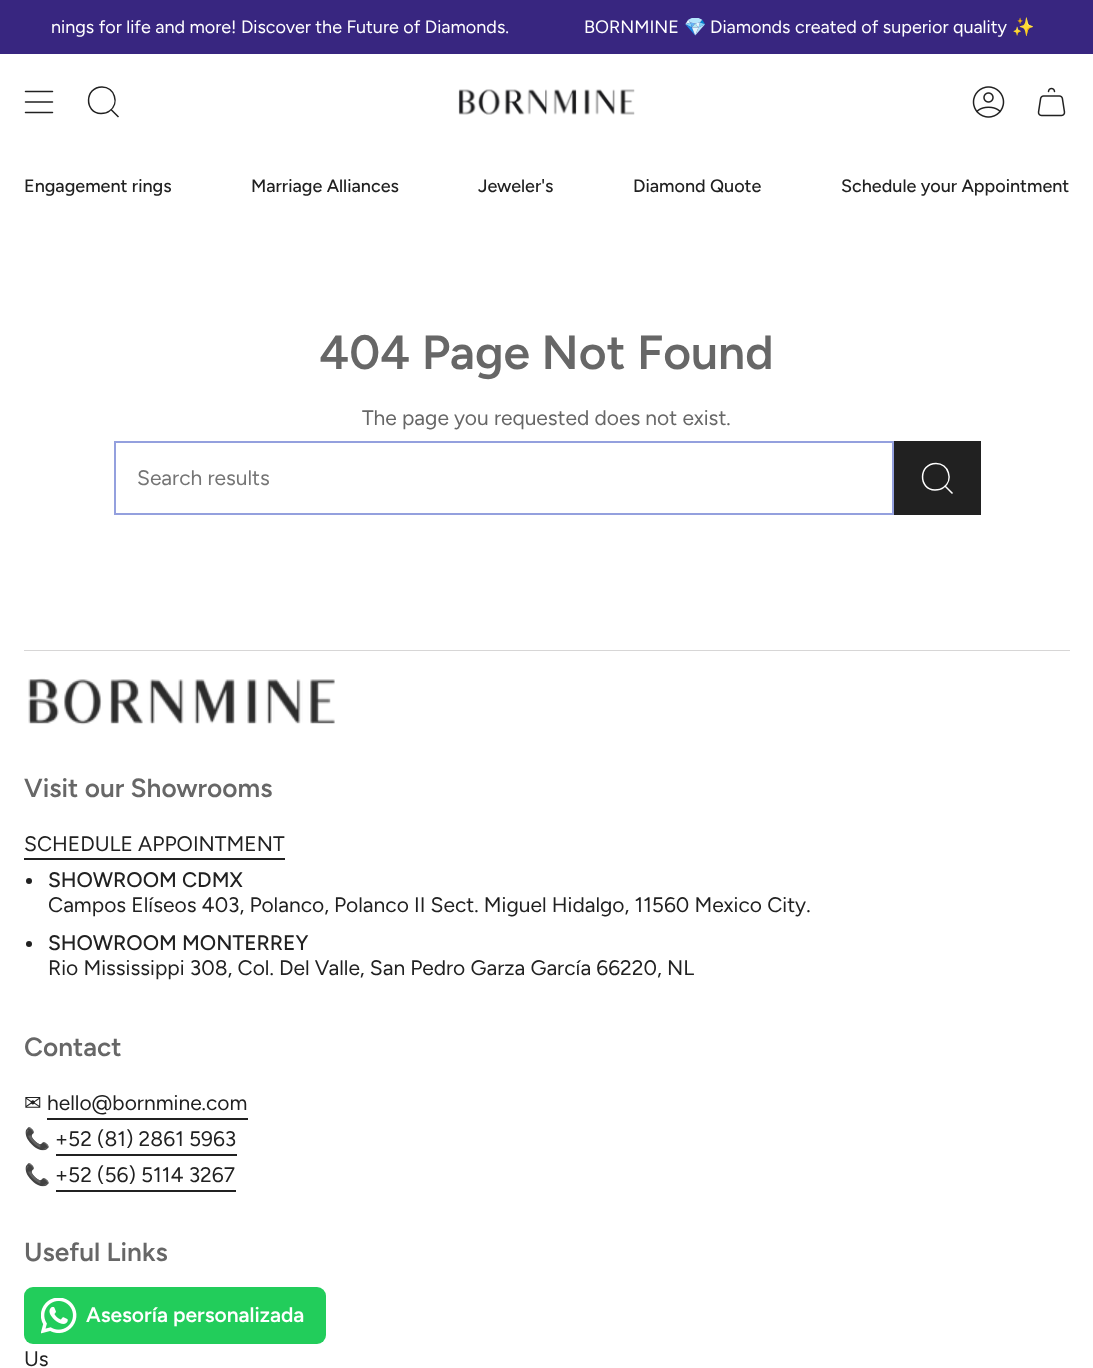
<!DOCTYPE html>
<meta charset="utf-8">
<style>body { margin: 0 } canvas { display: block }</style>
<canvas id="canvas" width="1093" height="1368"></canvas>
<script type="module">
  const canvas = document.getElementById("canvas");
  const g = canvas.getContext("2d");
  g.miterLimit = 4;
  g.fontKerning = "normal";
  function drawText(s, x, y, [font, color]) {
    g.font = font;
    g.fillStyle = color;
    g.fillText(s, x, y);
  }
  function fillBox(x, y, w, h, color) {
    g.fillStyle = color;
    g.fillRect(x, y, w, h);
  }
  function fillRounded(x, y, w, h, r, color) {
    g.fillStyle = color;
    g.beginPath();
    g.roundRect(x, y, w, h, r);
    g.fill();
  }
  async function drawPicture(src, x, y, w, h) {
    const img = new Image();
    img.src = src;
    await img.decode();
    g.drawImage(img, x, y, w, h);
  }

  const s1 = ["18px Figtree", "#FFFFFF"];
  const s2 = ["18px Noto Color Emoji", "#FFFFFF"];
  const s3 = ["500 18px Figtree", "#212121"];
  const s4 = ["600 48px Figtree", "#676767"];
  const s5 = ["21px Figtree", "#676767"];
  const s6 = ["21px Figtree", "#757575"];
  const s7 = ["600 26.25px Figtree", "#676767"];
  const s8 = ["21px Figtree", "#212121"];
  const s9 = ["500 21px Figtree", "#212121"];
  const s10 = ["21px DejaVu Sans", "#212121"];
  const s11 = ["21px Noto Color Emoji", "#212121"];
  const s12 = ["600 21px Figtree", "#FFFFFF"];

  fillBox(0, 0, 1093, 1368, "#FFFFFF");
  fillBox(0, 0, 1093, 54, "#382680");
  drawText("nings for life and more! Discover the Future of Diamonds.", 51, 33, s1);
  drawText("BORNMINE", 584, 33, s1);
  drawText("💎", 684, 33, s2);
  drawText("Diamonds created of superior quality", 710, 33, s1);
  drawText("✨", 1012, 33, s2);
  g.beginPath();
  g.moveTo(25.5, 91.5);
  g.lineTo(52.5, 91.5);
  g.moveTo(25.5, 102);
  g.lineTo(52.5, 102);
  g.moveTo(25.5, 112.5);
  g.lineTo(52.5, 112.5);
  g.strokeStyle = "#212121";
  g.lineWidth = 1.5;
  g.lineCap = "round";
  g.lineJoin = "round";
  g.stroke();
  g.beginPath();
  g.moveTo(102, 87);
  g.bezierCurveTo(114.5, 87, 120, 103.5, 109.5, 111);
  g.bezierCurveTo(107, 113, 104, 113.5, 101, 113.5);
  g.bezierCurveTo(84, 113, 84.5, 87, 102, 87);
  g.closePath();
  g.moveTo(111, 109.5);
  g.lineTo(118.5, 117);
  g.lineCap = "butt";
  g.lineJoin = "miter";
  g.stroke();
  await drawPicture("pic1.png", 458, 89, 177, 26);
  await drawPicture("pic2.png", 972, 86, 33, 32);
  await drawPicture("pic3.png", 1037, 87, 29, 30);
  drawText("Engagement rings", 24, 192, s3);
  drawText("Marriage Alliances", 251, 192, s3);
  drawText("Jeweler's", 478, 192, s3);
  drawText("Diamond Quote", 633, 192, s3);
  drawText("Schedule your Appointment", 841, 192, s3);
  drawText("404 Page Not Found", 319, 369, s4);
  drawText("The page you requested does not exist.", 362, 425, s5);
  g.strokeStyle = "#94A0DE";
  g.lineWidth = 2;
  g.strokeRect(115, 442, 778, 72);
  drawText("Search results", 137, 485, s6);
  fillBox(894, 441, 87, 74, "#212121");
  g.beginPath();
  g.moveTo(936, 463.5);
  g.bezierCurveTo(948.5, 463.5, 954, 480, 943.5, 487.5);
  g.bezierCurveTo(941, 489.5, 938, 490, 935, 490);
  g.bezierCurveTo(918, 489.5, 918.5, 463.5, 936, 463.5);
  g.closePath();
  g.moveTo(945, 486);
  g.lineTo(952.5, 493.5);
  g.strokeStyle = "#FFFFFF";
  g.lineWidth = 1.5;
  g.stroke();
  fillBox(24, 650, 1046, 1, "#D7D6D6");
  await drawPicture("pic4.png", 28, 678, 307, 47);
  drawText("Visit our Showrooms", 24, 797, s7);
  drawText("SCHEDULE APPOINTMENT", 24, 851, s8);
  fillBox(24, 858, 261, 2, "#212121");
  g.beginPath();
  g.arc(29, 881, 3, 0, Math.PI * 2);
  g.fill();
  drawText("SHOWROOM CDMX", 48, 887, s9);
  drawText("Campos Elíseos 403, Polanco, Polanco II Sect. Miguel Hidalgo, 11560 Mexico City.", 48, 912, s8);
  g.beginPath();
  g.arc(29, 944, 3, 0, Math.PI * 2);
  g.fill();
  drawText("SHOWROOM MONTERREY", 48, 950, s9);
  drawText("Rio Mississippi 308, Col. Del Valle, San Pedro Garza García 66220, NL", 48, 975, s8);
  drawText("Contact", 24, 1056, s7);
  drawText("✉", 24, 1110, s10);
  drawText("hello@bornmine.com", 47, 1110, s8);
  fillBox(47, 1118, 201, 2, "#212121");
  drawText("📞", 24, 1146, s11);
  drawText("+52 (81) 2861 5963", 55, 1146, s8);
  fillBox(56, 1154, 181, 2, "#212121");
  drawText("📞", 24, 1182, s11);
  drawText("+52 (56) 5114 3267", 55, 1182, s8);
  fillBox(56, 1190, 180, 2, "#212121");
  drawText("Useful Links", 24, 1261, s7);
  drawText("Us", 24, 1366, s8);
  fillRounded(24, 1287, 302, 57, 9, "#22CD5B");
  await drawPicture("pic5.png", 41, 1298, 36, 36);
  drawText("Asesoría personalizada", 86, 1322, s12);
</script>
